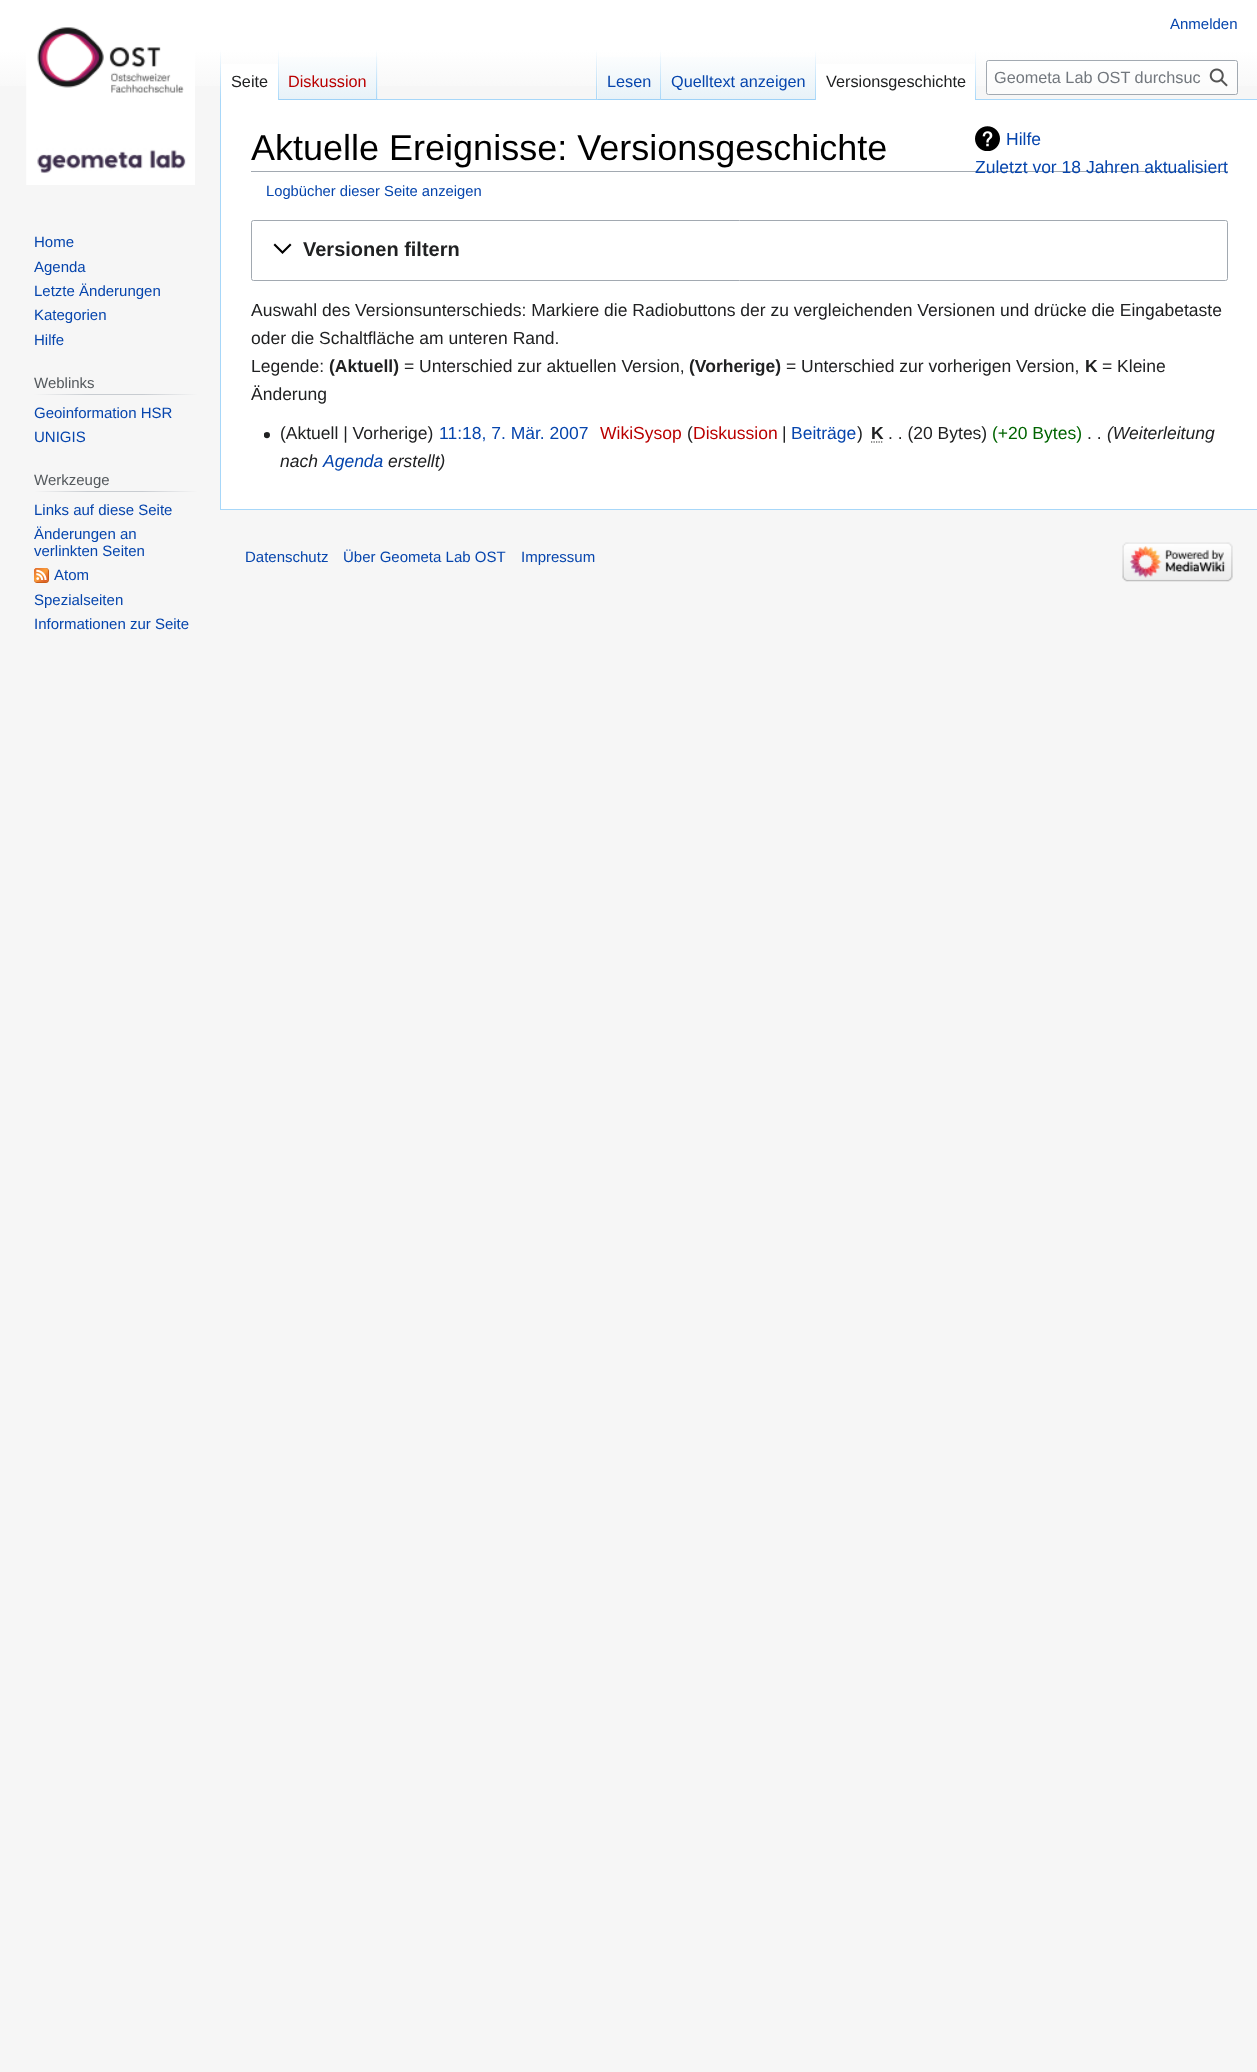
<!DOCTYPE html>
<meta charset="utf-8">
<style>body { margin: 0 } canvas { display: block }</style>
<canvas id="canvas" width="1257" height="2072"></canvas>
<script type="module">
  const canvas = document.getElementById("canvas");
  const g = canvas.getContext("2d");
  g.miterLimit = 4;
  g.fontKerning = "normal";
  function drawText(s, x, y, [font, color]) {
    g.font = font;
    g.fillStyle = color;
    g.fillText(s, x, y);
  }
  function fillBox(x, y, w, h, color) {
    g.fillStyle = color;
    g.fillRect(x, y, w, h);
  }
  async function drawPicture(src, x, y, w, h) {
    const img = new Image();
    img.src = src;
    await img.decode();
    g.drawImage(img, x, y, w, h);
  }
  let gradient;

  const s1 = ["15px Liberation Sans", "#0645AD"];
  const s2 = ["16.25px Liberation Sans", "#202122"];
  const s3 = ["16.25px Liberation Sans", "#BA0000"];
  const s4 = ["16.25px Liberation Sans", "#0645AD"];
  const s5 = ["16.25px Liberation Sans", "#72777D"];
  const s6 = ["15px Liberation Sans", "#54595D"];
  const s7 = ["36px Liberation Sans", "#000000"];
  const s8 = ["17.5px Liberation Sans", "#0645AD"];
  const s9 = ["14.75px Liberation Sans", "#0645AD"];
  const s10 = ["bold 20px Liberation Sans", "#202122"];
  const s11 = ["17.5px Liberation Sans", "#202122"];
  const s12 = ["bold 17.5px Liberation Sans", "#202122"];
  const s13 = ["17.5px Liberation Sans", "#BA0000"];
  const s14 = ["17.5px Liberation Sans", "#006400"];
  const s15 = ["italic 17.5px Liberation Sans", "#202122"];
  const s16 = ["italic 17.5px Liberation Sans", "#0645AD"];

  fillBox(0, 0, 1257, 2072, "#F6F6F6");
  gradient = g.createLinearGradient(629, 0, 629, 100);
  gradient.addColorStop(0.5, "#FFFFFF");
  gradient.addColorStop(1, "#F6F6F6");
  g.fillStyle = gradient;
  g.fillRect(0, 0, 1257, 86);
  drawText("Anmelden", 1170, 29, s1);
  fillBox(220, 509, 1037, 1, "#A7D7F9");
  fillBox(220, 99, 1, 411, "#A7D7F9");
  gradient = g.createLinearGradient(221, 50, 221, 100);
  gradient.addColorStop(0, "rgba(167, 215, 249, 0)");
  gradient.addColorStop(1, "#A7D7F9");
  g.fillStyle = gradient;
  g.fillRect(220, 50, 1, 50);
  fillBox(221, 64, 57, 36, "#FFFFFF");
  gradient = g.createLinearGradient(278, 50, 278, 100);
  gradient.addColorStop(0, "#FFFFFF");
  gradient.addColorStop(1, "#A7D7F9");
  g.fillStyle = gradient;
  g.fillRect(278, 50, 1, 50);
  drawText("Seite", 231, 87, s2);
  gradient = g.createLinearGradient(328, 100, 328, 50);
  gradient.addColorStop(0, "#77C1F6");
  gradient.addColorStop(0.03, "#E8F2F8");
  gradient.addColorStop(1, "#FFFFFF");
  g.fillStyle = gradient;
  g.fillRect(279, 57, 99, 43);
  gradient = g.createLinearGradient(377, 50, 377, 100);
  gradient.addColorStop(0, "rgba(167, 215, 249, 0)");
  gradient.addColorStop(1, "#A7D7F9");
  g.fillStyle = gradient;
  g.fillRect(376, 50, 1, 50);
  drawText("Diskussion", 288, 87, s3);
  fillBox(378, 99, 879, 1, "#A7D7F9");
  gradient = g.createLinearGradient(597, 50, 597, 100);
  gradient.addColorStop(0, "rgba(167, 215, 249, 0)");
  gradient.addColorStop(1, "#A7D7F9");
  g.fillStyle = gradient;
  g.fillRect(596, 50, 1, 50);
  gradient = g.createLinearGradient(629, 100, 629, 50);
  gradient.addColorStop(0, "#77C1F6");
  gradient.addColorStop(0.03, "#E8F2F8");
  gradient.addColorStop(1, "#FFFFFF");
  g.fillStyle = gradient;
  g.fillRect(598, 57, 63, 43);
  gradient = g.createLinearGradient(661, 50, 661, 100);
  gradient.addColorStop(0, "rgba(167, 215, 249, 0)");
  gradient.addColorStop(1, "#A7D7F9");
  g.fillStyle = gradient;
  g.fillRect(660, 50, 1, 50);
  drawText("Lesen", 607, 87, s4);
  gradient = g.createLinearGradient(739, 100, 739, 50);
  gradient.addColorStop(0, "#77C1F6");
  gradient.addColorStop(0.03, "#E8F2F8");
  gradient.addColorStop(1, "#FFFFFF");
  g.fillStyle = gradient;
  g.fillRect(661, 57, 155, 43);
  gradient = g.createLinearGradient(816, 50, 816, 100);
  gradient.addColorStop(0, "rgba(167, 215, 249, 0)");
  gradient.addColorStop(1, "#A7D7F9");
  g.fillStyle = gradient;
  g.fillRect(815, 50, 1, 50);
  drawText("Quelltext anzeigen", 671, 87, s4);
  fillBox(816, 64, 159, 36, "#FFFFFF");
  gradient = g.createLinearGradient(976, 50, 976, 100);
  gradient.addColorStop(0, "#FFFFFF");
  gradient.addColorStop(1, "#A7D7F9");
  g.fillStyle = gradient;
  g.fillRect(975, 50, 1, 50);
  drawText("Versionsgeschichte", 826, 87, s2);
  g.fillStyle = "rgba(255, 255, 255, 0.5)";
  g.beginPath();
  g.roundRect(986.5, 60.5, 251, 34, 2);
  g.fill();
  g.strokeStyle = "#A2A9B1";
  g.stroke();
  drawText("Geometa Lab OST durchsuc", 994, 83, s5);
  await drawPicture("pic1.png", 1209, 68, 19, 19);
  await drawPicture("pic2.png", 26, 27, 169, 158);
  drawText("Home", 34, 247, s1);
  drawText("Agenda", 34, 272, s1);
  drawText("Letzte Änderungen", 34, 296, s1);
  drawText("Kategorien", 34, 320, s1);
  drawText("Hilfe", 34, 345, s1);
  gradient = g.createLinearGradient(34, 394, 198, 394);
  gradient.addColorStop(0, "#F6F6F6");
  gradient.addColorStop(0.33, "#C8CCD1");
  gradient.addColorStop(0.66, "#C8CCD1");
  gradient.addColorStop(1, "#F6F6F6");
  g.fillStyle = gradient;
  g.fillRect(34, 394, 164, 1);
  drawText("Weblinks", 34, 388, s6);
  drawText("Geoinformation HSR", 34, 418, s1);
  drawText("UNIGIS", 34, 442, s1);
  gradient = g.createLinearGradient(34, 492, 198, 492);
  gradient.addColorStop(0, "#F6F6F6");
  gradient.addColorStop(0.33, "#C8CCD1");
  gradient.addColorStop(0.66, "#C8CCD1");
  gradient.addColorStop(1, "#F6F6F6");
  g.fillStyle = gradient;
  g.fillRect(34, 491, 164, 1);
  drawText("Werkzeuge", 34, 485, s6);
  drawText("Links auf diese Seite", 34, 515, s1);
  drawText("Änderungen an", 34, 539, s1);
  drawText("verlinkten Seiten", 34, 556, s1);
  await drawPicture("pic3.png", 34, 568, 15, 15);
  drawText("Atom", 54, 580, s1);
  drawText("Spezialseiten", 34, 605, s1);
  drawText("Informationen zur Seite", 34, 629, s1);
  fillBox(221, 100, 1036, 409, "#FFFFFF");
  fillBox(251, 171, 977, 1, "#A2A9B1");
  drawText("Aktuelle Ereignisse: Versionsgeschichte", 251, 160, s7);
  await drawPicture("pic4.png", 975, 126, 25, 25);
  drawText("Hilfe", 1006, 145, s8);
  drawText("Zuletzt vor 18 Jahren aktualisiert", 975, 173, s8);
  drawText("Logbücher dieser Seite anzeigen", 266, 196, s9);
  g.beginPath();
  g.roundRect(251.5, 220.5, 976, 60, 2);
  g.stroke();
  g.fillStyle = "#000000";
  g.beginPath();
  g.moveTo(290, 243.5);
  g.lineTo(282.5, 251);
  g.lineTo(275, 243.5);
  g.lineTo(273.5, 245);
  g.lineTo(282.5, 254);
  g.lineTo(291.5, 245);
  g.closePath();
  g.fill();
  drawText("Versionen filtern", 303, 256, s10);
  drawText("Auswahl des Versionsunterschieds: Markiere die Radiobuttons der zu vergleichenden Versionen und drücke die Eingabetaste", 251, 316, s11);
  drawText("oder die Schaltfläche am unteren Rand.", 251, 344, s11);
  drawText("Legende:", 251, 372, s11);
  drawText("(Aktuell)", 329, 372, s12);
  drawText("= Unterschied zur aktuellen Version,", 404, 372, s11);
  drawText("(Vorherige)", 689, 372, s12);
  drawText("= Unterschied zur vorherigen Version,", 786, 372, s11);
  drawText("K", 1085, 372, s12);
  drawText("= Kleine", 1102, 372, s11);
  drawText("Änderung", 251, 400, s11);
  await drawPicture("pic5.png", 264, 432, 6, 7);
  drawText("(Aktuell | Vorherige)", 280, 439, s11);
  drawText("11:18, 7. Mär. 2007", 439, 439, s8);
  drawText("WikiSysop", 600, 439, s13);
  drawText("(", 687, 439, s11);
  drawText("Diskussion", 693, 439, s13);
  drawText("|", 782, 439, s11);
  drawText("Beiträge", 791, 439, s8);
  drawText(")", 857, 439, s11);
  drawText("K", 871, 439, s12);
  g.beginPath();
  g.moveTo(871, 442);
  g.lineTo(883.5, 442);
  g.strokeStyle = "#202122";
  g.lineWidth = 1.2;
  g.setLineDash([1.25, 1.25]);
  g.stroke();
  drawText(". . (20 Bytes)", 888, 439, s11);
  drawText("(+20 Bytes)", 992, 439, s14);
  drawText(". .", 1087, 439, s11);
  drawText("(Weiterleitung", 1107, 439, s15);
  drawText("nach", 280, 467, s15);
  drawText("Agenda", 323, 467, s16);
  drawText("erstellt)", 388, 467, s15);
  drawText("Datenschutz", 245, 562, s1);
  drawText("Über Geometa Lab OST", 343, 562, s1);
  drawText("Impressum", 521, 562, s1);
  await drawPicture("pic6.png", 1122, 542, 111, 40);
</script>
